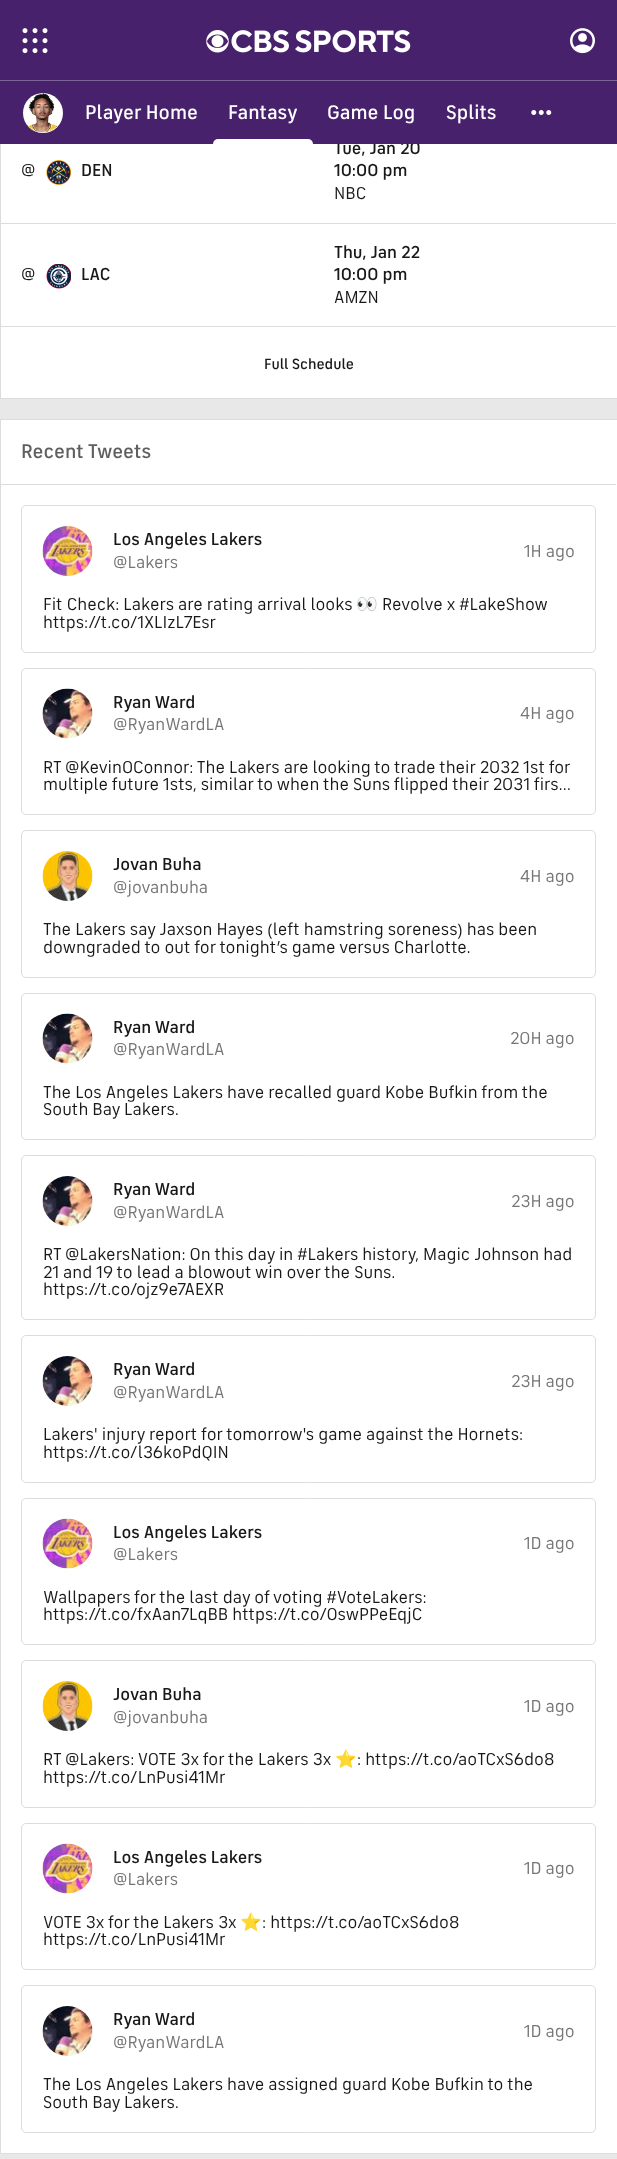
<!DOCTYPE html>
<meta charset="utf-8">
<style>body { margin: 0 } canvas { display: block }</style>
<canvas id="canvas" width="617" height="2159"></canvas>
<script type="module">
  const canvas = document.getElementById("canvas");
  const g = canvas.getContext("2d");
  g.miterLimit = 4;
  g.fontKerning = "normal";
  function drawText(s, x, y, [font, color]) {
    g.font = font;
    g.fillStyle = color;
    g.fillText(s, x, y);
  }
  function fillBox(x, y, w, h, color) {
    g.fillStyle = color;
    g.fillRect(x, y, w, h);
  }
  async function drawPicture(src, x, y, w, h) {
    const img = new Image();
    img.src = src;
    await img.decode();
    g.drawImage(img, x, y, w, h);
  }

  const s1 = ["500 17.5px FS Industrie", "#181818"];
  const s2 = ["500 20px FS Industrie", "#FFFFFF"];
  const s3 = ["17.5px FS Industrie", "#181818"];
  const s4 = ["500 15px FS Industrie", "#181818"];
  const s5 = ["500 20px FS Industrie", "#5F5F5F"];
  const s6 = ["17.5px FS Industrie", "#767676"];
  const s7 = ["17.5px Noto Color Emoji", "#181818"];

  fillBox(0, 0, 617, 2159, "#E8E8E8");
  fillBox(1, 144, 616, 254, "#FFFFFF");
  g.strokeStyle = "#DCDCDC";
  g.strokeRect(0.5, -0.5, 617, 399);
  fillBox(0, 0, 617, 80, "#47216C");
  fillBox(0, 80, 617, 1, "#7E6498");
  await drawPicture("pic1.png", 22, 28, 26, 26);
  await drawPicture("pic2.png", 206, 30, 23, 23);
  await drawPicture("pic3.png", 231, 30, 180, 23);
  await drawPicture("pic4.png", 570, 28, 25, 26);
  drawText("Tue, Jan 20", 334, 154, s1);
  fillBox(0, 81, 617, 63, "#47216C");
  g.fillStyle = "#FFFFFF";
  g.beginPath();
  g.arc(43, 113, 20, 0, Math.PI * 2);
  g.fill();
  await drawPicture("pic5.png", 28, 93, 29, 40);
  drawText("Player Home", 85, 119, s2);
  drawText("Fantasy", 228, 119, s2);
  g.beginPath();
  g.roundRect(213, 139, 100, 5, [5, 5, 0, 0]);
  g.fill();
  drawText("Game Log", 327, 119, s2);
  drawText("Splits", 446, 119, s2);
  await drawPicture("pic6.png", 531, 110, 21, 5);
  fillBox(1, 223, 615, 1, "#DCDCDC");
  drawText("@", 21, 176, s3);
  await drawPicture("pic7.png", 46, 160, 25, 25);
  drawText("DEN", 81, 176, s1);
  drawText("10:00 pm", 334, 176, s1);
  drawText("NBC", 334, 199, s3);
  drawText("@", 21, 280, s3);
  await drawPicture("pic8.png", 46, 264, 25, 25);
  drawText("LAC", 81, 280, s1);
  drawText("Thu, Jan 22", 334, 258, s1);
  drawText("10:00 pm", 334, 280, s1);
  drawText("AMZN", 334, 303, s3);
  fillBox(1, 326, 615, 1, "#DCDCDC");
  drawText("Full Schedule", 264, 369, s4);
  g.fillStyle = "#FFFFFF";
  g.beginPath();
  g.rect(0.5, 419.5, 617, 1734);
  g.fill();
  g.stroke();
  drawText("Recent Tweets", 21, 458, s5);
  fillBox(1, 484, 615, 1, "#DCDCDC");
  g.beginPath();
  g.roundRect(21.5, 505.5, 574, 147, 4.5);
  g.stroke();
  await drawPicture("pic9.png", 42, 526, 51, 50);
  drawText("Los Angeles Lakers", 113, 545, s1);
  drawText("@Lakers", 113, 568, s6);
  drawText("1H ago", 524, 557, s6);
  drawText("Fit Check: Lakers are rating arrival looks", 43, 610, s3);
  drawText("👀", 356, 610, s7);
  drawText("Revolve x #LakeShow", 382, 610, s3);
  drawText("https://t.co/1XLIzL7Esr", 43, 628, s3);
  g.beginPath();
  g.roundRect(21.5, 668.5, 574, 146, 4.5);
  g.stroke();
  await drawPicture("pic10.png", 42, 688, 51, 51);
  drawText("Ryan Ward", 113, 708, s1);
  drawText("@RyanWardLA", 113, 730, s6);
  drawText("4H ago", 520, 719, s6);
  drawText("RT @KevinOConnor: The Lakers are looking to trade their 2032 1st for", 43, 773, s3);
  drawText("multiple future 1sts, similar to when the Suns flipped their 2031 firs…", 43, 790, s3);
  g.beginPath();
  g.roundRect(21.5, 830.5, 574, 147, 4.5);
  g.stroke();
  await drawPicture("pic11.png", 42, 851, 51, 50);
  drawText("Jovan Buha", 113, 870, s1);
  drawText("@jovanbuha", 113, 893, s6);
  drawText("4H ago", 520, 882, s6);
  drawText("The Lakers say Jaxson Hayes (left hamstring soreness) has been", 43, 935, s3);
  drawText("downgraded to out for tonight’s game versus Charlotte.", 43, 953, s3);
  g.beginPath();
  g.roundRect(21.5, 993.5, 574, 146, 4.5);
  g.stroke();
  await drawPicture("pic10.png", 42, 1013, 51, 51);
  drawText("Ryan Ward", 113, 1033, s1);
  drawText("@RyanWardLA", 113, 1055, s6);
  drawText("20H ago", 510, 1044, s6);
  drawText("The Los Angeles Lakers have recalled guard Kobe Bufkin from the", 43, 1098, s3);
  drawText("South Bay Lakers.", 43, 1115, s3);
  g.beginPath();
  g.roundRect(21.5, 1155.5, 574, 164, 4.5);
  g.stroke();
  await drawPicture("pic12.png", 42, 1176, 51, 50);
  drawText("Ryan Ward", 113, 1195, s1);
  drawText("@RyanWardLA", 113, 1218, s6);
  drawText("23H ago", 511, 1207, s6);
  drawText("RT @LakersNation: On this day in #Lakers history, Magic Johnson had", 43, 1260, s3);
  drawText("21 and 19 to lead a blowout win over the Suns.", 43, 1278, s3);
  drawText("https://t.co/ojz9e7AEXR", 43, 1295, s3);
  g.beginPath();
  g.roundRect(21.5, 1335.5, 574, 147, 4.5);
  g.stroke();
  await drawPicture("pic12.png", 42, 1356, 51, 50);
  drawText("Ryan Ward", 113, 1375, s1);
  drawText("@RyanWardLA", 113, 1398, s6);
  drawText("23H ago", 511, 1387, s6);
  drawText("Lakers' injury report for tomorrow's game against the Hornets:", 43, 1440, s3);
  drawText("https://t.co/l36koPdQIN", 43, 1458, s3);
  g.beginPath();
  g.roundRect(21.5, 1498.5, 574, 146, 4.5);
  g.stroke();
  await drawPicture("pic13.png", 42, 1518, 51, 51);
  drawText("Los Angeles Lakers", 113, 1538, s1);
  drawText("@Lakers", 113, 1560, s6);
  drawText("1D ago", 524, 1549, s6);
  drawText("Wallpapers for the last day of voting #VoteLakers:", 43, 1603, s3);
  drawText("https://t.co/fxAan7LqBB https://t.co/0swPPeEqjC", 43, 1620, s3);
  g.beginPath();
  g.roundRect(21.5, 1660.5, 574, 147, 4.5);
  g.stroke();
  await drawPicture("pic11.png", 42, 1681, 51, 50);
  drawText("Jovan Buha", 113, 1700, s1);
  drawText("@jovanbuha", 113, 1723, s6);
  drawText("1D ago", 524, 1712, s6);
  drawText("RT @Lakers: VOTE 3x for the Lakers 3x", 43, 1765, s3);
  drawText("⭐️", 335, 1765, s7);
  drawText(": https://t.co/aoTCxS6do8", 357, 1765, s3);
  drawText("https://t.co/LnPusi41Mr", 43, 1783, s3);
  g.beginPath();
  g.roundRect(21.5, 1823.5, 574, 146, 4.5);
  g.stroke();
  await drawPicture("pic14.png", 42, 1843, 51, 51);
  drawText("Los Angeles Lakers", 113, 1863, s1);
  drawText("@Lakers", 113, 1885, s6);
  drawText("1D ago", 524, 1874, s6);
  drawText("VOTE 3x for the Lakers 3x", 43, 1928, s3);
  drawText("⭐️", 240, 1928, s7);
  drawText(": https://t.co/aoTCxS6do8", 262, 1928, s3);
  drawText("https://t.co/LnPusi41Mr", 43, 1945, s3);
  g.beginPath();
  g.roundRect(21.5, 1985.5, 574, 147, 4.5);
  g.stroke();
  await drawPicture("pic12.png", 42, 2006, 51, 50);
  drawText("Ryan Ward", 113, 2025, s1);
  drawText("@RyanWardLA", 113, 2048, s6);
  drawText("1D ago", 524, 2037, s6);
  drawText("The Los Angeles Lakers have assigned guard Kobe Bufkin to the", 43, 2090, s3);
  drawText("South Bay Lakers.", 43, 2108, s3);
</script>
